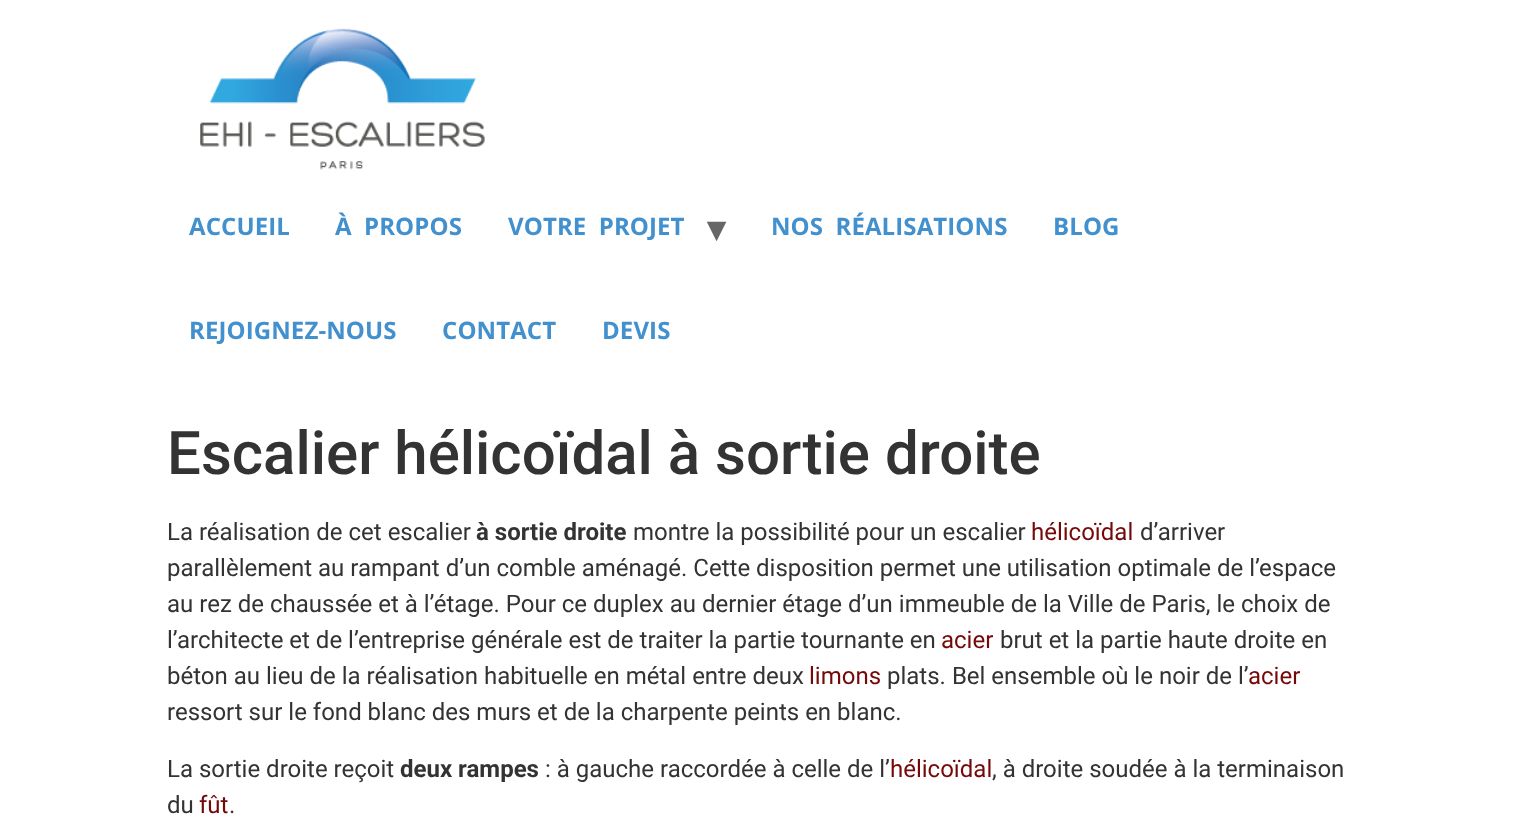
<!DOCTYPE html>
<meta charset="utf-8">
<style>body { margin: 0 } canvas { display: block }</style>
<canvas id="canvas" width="1533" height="820"></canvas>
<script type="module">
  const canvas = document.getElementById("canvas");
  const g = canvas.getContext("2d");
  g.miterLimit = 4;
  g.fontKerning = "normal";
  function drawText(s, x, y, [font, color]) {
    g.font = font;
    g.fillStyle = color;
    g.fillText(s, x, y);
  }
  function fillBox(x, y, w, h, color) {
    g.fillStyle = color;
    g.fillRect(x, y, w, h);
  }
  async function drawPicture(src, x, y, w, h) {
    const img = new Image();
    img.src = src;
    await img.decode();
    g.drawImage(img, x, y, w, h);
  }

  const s1 = ["bold 24px Open Sans", "#4290CD"];
  const s2 = ["bold 36px DejaVu Sans", "#666666"];
  const s3 = ["500 60px Roboto", "#333333"];
  const s4 = ["24px Roboto", "#333333"];
  const s5 = ["bold 24px Roboto", "#333333"];
  const s6 = ["24px Roboto", "#750909"];

  fillBox(0, 0, 1533, 820, "#FFFFFF");
  await drawPicture("pic1.png", 200, 28, 285, 142);
  g.letterSpacing = "0.1px";
  drawText("ACCUEIL", 189, 235, s1);
  g.wordSpacing = "6px";
  drawText("À PROPOS", 335, 235, s1);
  drawText("VOTRE PROJET", 508, 235, s1);
  g.wordSpacing = "0px";
  drawText("▾", 707, 241, s2);
  g.wordSpacing = "6px";
  drawText("NOS RÉALISATIONS", 771, 235, s1);
  g.wordSpacing = "0px";
  drawText("BLOG", 1053, 235, s1);
  drawText("REJOIGNEZ-NOUS", 189, 339, s1);
  drawText("CONTACT", 442, 339, s1);
  drawText("DEVIS", 602, 339, s1);
  g.letterSpacing = "0px";
  drawText("Escalier hélicoïdal à sortie droite", 167, 474, s3);
  drawText("La réalisation de cet escalier", 167, 540, s4);
  drawText("à sortie droite", 476, 540, s5);
  drawText("montre la possibilité pour un escalier", 633, 540, s4);
  drawText("hélicoïdal", 1031, 540, s6);
  drawText("d’arriver", 1140, 540, s4);
  drawText("parallèlement au rampant d’un comble aménagé. Cette disposition permet une utilisation optimale de l’espace", 167, 576, s4);
  drawText("au rez de chaussée et à l’étage. Pour ce duplex au dernier étage d’un immeuble de la Ville de Paris, le choix de", 167, 612, s4);
  drawText("l’architecte et de l’entreprise générale est de traiter la partie tournante en", 167, 648, s4);
  drawText("acier", 941, 648, s6);
  drawText("brut et la partie haute droite en", 1000, 648, s4);
  drawText("béton au lieu de la réalisation habituelle en métal entre deux", 167, 684, s4);
  drawText("limons", 809, 684, s6);
  drawText("plats. Bel ensemble où le noir de l’", 887, 684, s4);
  drawText("acier", 1248, 684, s6);
  drawText("ressort sur le fond blanc des murs et de la charpente peints en blanc.", 167, 720, s4);
  drawText("La sortie droite reçoit", 167, 777, s4);
  drawText("deux rampes", 400, 777, s5);
  drawText(": à gauche raccordée à celle de l’", 545, 777, s4);
  drawText("hélicoïdal", 890, 777, s6);
  drawText(", à droite soudée à la terminaison", 992, 777, s4);
  drawText("du", 167, 813, s4);
  drawText("fût", 199, 813, s6);
  drawText(".", 229, 813, s4);
</script>
